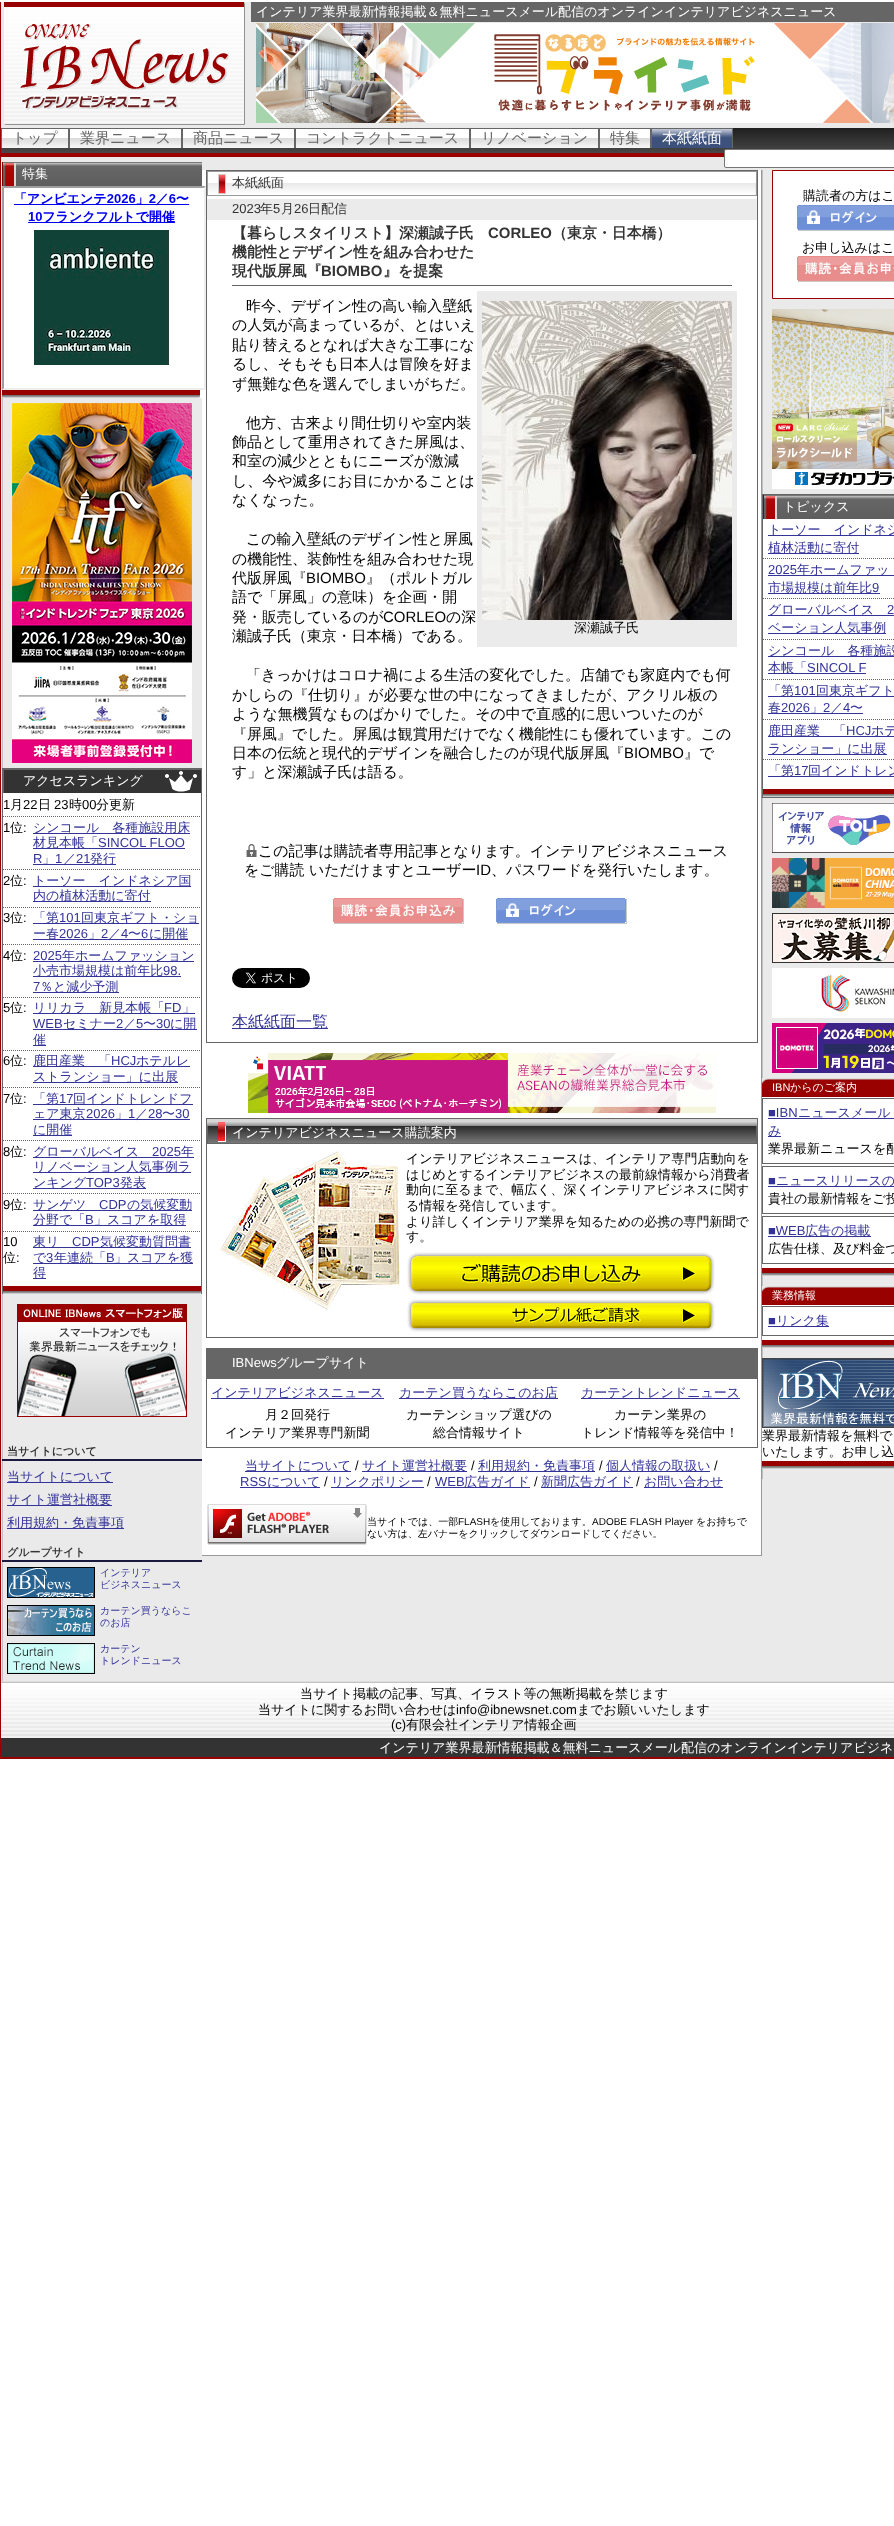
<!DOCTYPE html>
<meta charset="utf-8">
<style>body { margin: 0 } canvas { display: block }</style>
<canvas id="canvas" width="894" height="2526"></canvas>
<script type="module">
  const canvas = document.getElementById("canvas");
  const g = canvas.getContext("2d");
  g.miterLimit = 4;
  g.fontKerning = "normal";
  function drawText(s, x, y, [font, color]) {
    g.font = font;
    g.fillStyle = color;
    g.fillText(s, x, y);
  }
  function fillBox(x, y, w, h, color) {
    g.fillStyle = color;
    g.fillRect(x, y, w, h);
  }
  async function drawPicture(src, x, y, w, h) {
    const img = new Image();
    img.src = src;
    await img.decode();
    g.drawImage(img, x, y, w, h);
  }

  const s1 = ["500 13px WenQuanYi Zen Hei", "#FFFFFF"];
  const s2 = ["500 15px WenQuanYi Zen Hei", "#666666"];
  const s3 = ["500 15px WenQuanYi Zen Hei", "#FFFFFF"];
  const s4 = ["13px Liberation Sans", "#000000"];
  const s5 = ["500 13px WenQuanYi Zen Hei", "#000000"];
  const s6 = ["500 13px WenQuanYi Zen Hei", "#333399"];
  const s7 = ["13px Liberation Sans", "#333399"];
  const s8 = ["bold 11px WenQuanYi Zen Hei", "#333333"];
  const s9 = ["500 10px WenQuanYi Zen Hei", "#333399"];
  const s10 = ["500 13px WenQuanYi Zen Hei", "#333333"];
  const s11 = ["13px Liberation Sans", "#333333"];
  const s12 = ["bold 14.95px WenQuanYi Zen Hei", "#333333"];
  const s13 = ["bold 14.95px Liberation Sans", "#333333"];
  const s14 = ["500 14.95px WenQuanYi Zen Hei", "#000000"];
  const s15 = ["14.95px Liberation Sans", "#000000"];
  const s16 = ["500 16px WenQuanYi Zen Hei", "#333399"];
  const s17 = ["13px Liberation Sans", "#FFFFFF"];
  const s18 = ["500 10px WenQuanYi Zen Hei", "#000000"];
  const s19 = ["10px Liberation Sans", "#000000"];
  const s20 = ["11px Liberation Sans", "#FFFFFF"];
  const s21 = ["500 11px WenQuanYi Zen Hei", "#FFFFFF"];

  fillBox(0, 0, 894, 2526, "#FFFFFF");
  fillBox(1, 2, 893, 1679, "#EAEAEA");
  fillBox(0, 2, 1, 1757, "#990000");
  await drawPicture("pic1.png", 4, 2, 241, 123);
  fillBox(251, 2, 643, 20, "#666666");
  drawText("インテリア業界最新情報掲載＆無料ニュースメール配信のオンラインインテリアビジネスニュース", 256, 16, s1);
  await drawPicture("pic2.png", 256, 23, 638, 100);
  await drawPicture("pic3.png", 1, 128, 893, 29);
  await drawPicture("pic4.png", 2, 129, 66, 19);
  fillBox(1, 128, 732, 1, "#666666");
  fillBox(68, 128, 2, 20, "#666666");
  fillBox(1, 128, 1, 20, "#666666");
  drawText("トップ", 12, 143, s2);
  await drawPicture("pic5.png", 70, 129, 111, 19);
  fillBox(181, 128, 2, 20, "#666666");
  drawText("業界ニュース", 80, 143, s2);
  await drawPicture("pic5.png", 183, 129, 111, 19);
  fillBox(294, 128, 2, 20, "#666666");
  drawText("商品ニュース", 193, 143, s2);
  await drawPicture("pic6.png", 296, 129, 173, 19);
  fillBox(469, 128, 2, 20, "#666666");
  drawText("コントラクトニュース", 306, 143, s2);
  await drawPicture("pic7.png", 471, 129, 127, 19);
  fillBox(598, 128, 2, 20, "#666666");
  drawText("リノベーション", 481, 143, s2);
  await drawPicture("pic8.png", 600, 129, 50, 19);
  fillBox(650, 128, 2, 20, "#666666");
  drawText("特集", 610, 143, s2);
  await drawPicture("pic9.png", 652, 129, 80, 19);
  fillBox(732, 128, 1, 20, "#666666");
  drawText("本紙紙面", 662, 143, s3);
  g.beginPath();
  g.roundRect(724.5, 149.5, 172, 18, 1.5);
  g.fill();
  g.strokeStyle = "#767676";
  g.stroke();
  fillBox(2, 398, 1, 1283, "#BFBFBF");
  fillBox(2, 186, 200, 212, "#FFFFFF");
  await drawPicture("pic10.png", 2, 390, 198, 8);
  await drawPicture("pic11.png", 2, 162, 200, 24);
  drawText("特集", 22, 178, s1);
  fillBox(202, 170, 559, 1385, "#FFFFFF");
  g.fillStyle = "#9F9F9F";
  g.beginPath();
  g.moveTo(2, 186);
  g.lineTo(206, 186);
  g.lineTo(204, 188);
  g.lineTo(4, 188);
  g.closePath();
  g.fill();
  g.fillStyle = "#EEEEEE";
  g.beginPath();
  g.moveTo(206, 186);
  g.lineTo(206, 390);
  g.lineTo(204, 388);
  g.lineTo(204, 188);
  g.closePath();
  g.fill();
  g.beginPath();
  g.moveTo(206, 390);
  g.lineTo(2, 390);
  g.lineTo(4, 388);
  g.lineTo(204, 388);
  g.closePath();
  g.fill();
  g.fillStyle = "#9F9F9F";
  g.beginPath();
  g.moveTo(2, 390);
  g.lineTo(2, 186);
  g.lineTo(4, 188);
  g.lineTo(4, 388);
  g.closePath();
  g.fill();
  await drawPicture("pic12.png", 13, 192, 177, 173);
  await drawPicture("pic13.png", 12, 403, 180, 360);
  fillBox(3, 793, 198, 493, "#FFFFFF");
  await drawPicture("pic10.png", 3, 1286, 198, 8);
  fillBox(2, 768, 200, 1, "#666666");
  fillBox(201, 768, 1, 526, "#666666");
  fillBox(2, 768, 1, 526, "#666666");
  await drawPicture("pic14.png", 3, 769, 198, 24);
  drawText("アクセスランキング", 23, 785, s1);
  drawText("1", 3, 809, s4);
  drawText("月", 10, 809, s5);
  drawText("22", 23, 809, s4);
  drawText("日", 38, 809, s5);
  drawText("23", 54, 809, s4);
  drawText("時", 69, 809, s5);
  drawText("00", 82, 809, s4);
  drawText("分更新", 96, 809, s5);
  g.beginPath();
  g.moveTo(3, 816.5);
  g.lineTo(201, 816.5);
  g.strokeStyle = "#666666";
  g.setLineDash([1, 1]);
  g.stroke();
  drawText("1", 3, 832, s4);
  drawText("位", 10, 832, s5);
  drawText(":", 23, 832, s4);
  fillBox(33, 833, 157, 1, "#333399");
  drawText("シンコール　各種施設用床", 33, 832, s6);
  fillBox(33, 848, 152, 1, "#333399");
  drawText("材見本帳「", 33, 847, s6);
  drawText("SINCOL FLOO", 98, 847, s7);
  drawText("R", 33, 863, s7);
  fillBox(33, 864, 83, 1, "#333399");
  drawText("」", 42, 863, s6);
  drawText("1", 55, 863, s7);
  drawText("／", 63, 863, s6);
  drawText("21", 76, 863, s7);
  drawText("発行", 90, 863, s6);
  g.beginPath();
  g.moveTo(3, 869.5);
  g.lineTo(33, 869.5);
  g.stroke();
  drawText("2", 3, 885, s4);
  drawText("位", 10, 885, s5);
  drawText(":", 23, 885, s4);
  g.beginPath();
  g.moveTo(33, 869.5);
  g.lineTo(201, 869.5);
  g.stroke();
  fillBox(33, 886, 158, 1, "#333399");
  drawText("トーソー　インドネシア国", 33, 885, s6);
  fillBox(33, 901, 118, 1, "#333399");
  drawText("内の植林活動に寄付", 33, 900, s6);
  g.beginPath();
  g.moveTo(3, 907.5);
  g.lineTo(33, 907.5);
  g.stroke();
  drawText("3", 3, 922, s4);
  drawText("位", 10, 922, s5);
  drawText(":", 23, 922, s4);
  g.beginPath();
  g.moveTo(33, 907.5);
  g.lineTo(201, 907.5);
  g.stroke();
  fillBox(33, 923, 166, 1, "#333399");
  drawText("「第", 33, 922, s6);
  drawText("101", 59, 922, s7);
  drawText("回東京ギフト・ショ", 81, 922, s6);
  fillBox(33, 939, 155, 1, "#333399");
  drawText("ー春", 33, 938, s6);
  drawText("2026", 59, 938, s7);
  drawText("」", 88, 938, s6);
  drawText("2", 101, 938, s7);
  drawText("／", 108, 938, s6);
  drawText("4", 121, 938, s7);
  drawText("〜", 128, 938, s6);
  drawText("6", 141, 938, s7);
  drawText("に開催", 149, 938, s6);
  g.beginPath();
  g.moveTo(3, 944.5);
  g.lineTo(33, 944.5);
  g.stroke();
  drawText("4", 3, 960, s4);
  drawText("位", 10, 960, s5);
  drawText(":", 23, 960, s4);
  g.beginPath();
  g.moveTo(33, 944.5);
  g.lineTo(201, 944.5);
  g.stroke();
  drawText("2025", 33, 960, s7);
  fillBox(33, 961, 161, 1, "#333399");
  drawText("年ホームファッション", 62, 960, s6);
  fillBox(33, 976, 148, 1, "#333399");
  drawText("小売市場規模は前年比", 33, 975, s6);
  drawText("98.", 163, 975, s7);
  drawText("7", 33, 991, s7);
  fillBox(33, 992, 86, 1, "#333399");
  drawText("％と減少予測", 40, 991, s6);
  g.beginPath();
  g.moveTo(3, 997.5);
  g.lineTo(33, 997.5);
  g.stroke();
  drawText("5", 3, 1012, s4);
  drawText("位", 10, 1012, s5);
  drawText(":", 23, 1012, s4);
  g.beginPath();
  g.moveTo(33, 997.5);
  g.lineTo(201, 997.5);
  g.stroke();
  fillBox(33, 1013, 162, 1, "#333399");
  drawText("リリカラ　新見本帳「", 33, 1012, s6);
  drawText("FD", 164, 1012, s7);
  drawText("」", 182, 1012, s6);
  drawText("WEB", 33, 1028, s7);
  fillBox(33, 1029, 164, 1, "#333399");
  drawText("セミナー", 63, 1028, s6);
  drawText("2", 116, 1028, s7);
  drawText("／", 123, 1028, s6);
  drawText("5", 136, 1028, s7);
  drawText("〜", 143, 1028, s6);
  drawText("30", 156, 1028, s7);
  drawText("に開", 170, 1028, s6);
  fillBox(33, 1045, 13, 1, "#333399");
  drawText("催", 33, 1044, s6);
  g.beginPath();
  g.moveTo(3, 1050.5);
  g.lineTo(33, 1050.5);
  g.stroke();
  drawText("6", 3, 1065, s4);
  drawText("位", 10, 1065, s5);
  drawText(":", 23, 1065, s4);
  g.beginPath();
  g.moveTo(33, 1050.5);
  g.lineTo(201, 1050.5);
  g.stroke();
  fillBox(33, 1066, 157, 1, "#333399");
  drawText("鹿田産業　「", 33, 1065, s6);
  drawText("HCJ", 111, 1065, s7);
  drawText("ホテルレ", 136, 1065, s6);
  fillBox(33, 1082, 145, 1, "#333399");
  drawText("ストランショー」に出展", 33, 1081, s6);
  g.beginPath();
  g.moveTo(3, 1087.5);
  g.lineTo(33, 1087.5);
  g.stroke();
  drawText("7", 3, 1103, s4);
  drawText("位", 10, 1103, s5);
  drawText(":", 23, 1103, s4);
  g.beginPath();
  g.moveTo(33, 1087.5);
  g.lineTo(201, 1087.5);
  g.stroke();
  fillBox(33, 1104, 160, 1, "#333399");
  drawText("「第", 33, 1103, s6);
  drawText("17", 59, 1103, s7);
  drawText("回インドトレンドフ", 73, 1103, s6);
  fillBox(33, 1119, 157, 1, "#333399");
  drawText("ェア東京", 33, 1118, s6);
  drawText("2026", 86, 1118, s7);
  drawText("」", 115, 1118, s6);
  drawText("1", 128, 1118, s7);
  drawText("／", 135, 1118, s6);
  drawText("28", 148, 1118, s7);
  drawText("〜", 162, 1118, s6);
  drawText("30", 175, 1118, s7);
  fillBox(33, 1135, 39, 1, "#333399");
  drawText("に開催", 33, 1134, s6);
  g.beginPath();
  g.moveTo(3, 1140.5);
  g.lineTo(33, 1140.5);
  g.stroke();
  drawText("8", 3, 1156, s4);
  drawText("位", 10, 1156, s5);
  drawText(":", 23, 1156, s4);
  g.beginPath();
  g.moveTo(33, 1140.5);
  g.lineTo(201, 1140.5);
  g.stroke();
  fillBox(33, 1157, 161, 1, "#333399");
  drawText("グローバルベイス", 33, 1156, s6);
  drawText("2025", 152, 1156, s7);
  drawText("年", 181, 1156, s6);
  fillBox(33, 1172, 158, 1, "#333399");
  drawText("リノベーション人気事例ラ", 33, 1171, s6);
  fillBox(33, 1188, 113, 1, "#333399");
  drawText("ンキング", 33, 1187, s6);
  drawText("TOP3", 86, 1187, s7);
  drawText("発表", 120, 1187, s6);
  g.beginPath();
  g.moveTo(3, 1193.5);
  g.lineTo(33, 1193.5);
  g.stroke();
  drawText("9", 3, 1209, s4);
  drawText("位", 10, 1209, s5);
  drawText(":", 23, 1209, s4);
  g.beginPath();
  g.moveTo(33, 1193.5);
  g.lineTo(201, 1193.5);
  g.stroke();
  fillBox(33, 1210, 159, 1, "#333399");
  drawText("サンゲツ", 33, 1209, s6);
  drawText("CDP", 99, 1209, s7);
  drawText("の気候変動", 127, 1209, s6);
  fillBox(33, 1225, 153, 1, "#333399");
  drawText("分野で「", 33, 1224, s6);
  drawText("B", 85, 1224, s7);
  drawText("」スコアを取得", 94, 1224, s6);
  g.beginPath();
  g.moveTo(3, 1231.5);
  g.lineTo(33, 1231.5);
  g.stroke();
  drawText("10", 3, 1246, s4);
  drawText("位", 3, 1262, s5);
  drawText(":", 16, 1262, s4);
  g.beginPath();
  g.moveTo(33, 1231.5);
  g.lineTo(201, 1231.5);
  g.stroke();
  fillBox(33, 1247, 158, 1, "#333399");
  drawText("東リ", 33, 1246, s6);
  drawText("CDP", 72, 1246, s7);
  drawText("気候変動質問書", 100, 1246, s6);
  fillBox(33, 1263, 160, 1, "#333399");
  drawText("で", 33, 1262, s6);
  drawText("3", 46, 1262, s7);
  drawText("年連続「", 54, 1262, s6);
  drawText("B", 106, 1262, s7);
  drawText("」スコアを獲", 114, 1262, s6);
  fillBox(33, 1278, 13, 1, "#333399");
  drawText("得", 33, 1277, s6);
  await drawPicture("pic15.png", 17, 1304, 170, 113);
  fillBox(2, 1459, 200, 2, "#1A1940");
  drawText("当サイトについて", 7, 1455, s8);
  fillBox(7, 1482, 106, 1, "#333399");
  drawText("当サイトについて", 7, 1481, s6);
  fillBox(7, 1505, 105, 1, "#333399");
  drawText("サイト運営社概要", 7, 1504, s6);
  fillBox(7, 1528, 117, 1, "#333399");
  drawText("利用規約・免責事項", 7, 1527, s6);
  fillBox(2, 1560, 200, 2, "#1A1940");
  drawText("グループサイト", 7, 1556, s8);
  await drawPicture("pic16.png", 7, 1567, 88, 31);
  drawText("インテリア", 100, 1576, s9);
  drawText("ビジネスニュース", 100, 1588, s9);
  await drawPicture("pic17.png", 7, 1605, 88, 31);
  drawText("カーテン買うならこ", 100, 1614, s9);
  drawText("のお店", 100, 1626, s9);
  await drawPicture("pic18.png", 7, 1643, 88, 31);
  drawText("カーテン", 100, 1652, s9);
  drawText("トレンドニュース", 100, 1664, s9);
  fillBox(761, 170, 1, 1386, "#999999");
  fillBox(202, 1555, 560, 1, "#999999");
  g.setLineDash([]);
  g.strokeRect(206.5, 170.5, 551, 872);
  await drawPicture("pic19.png", 207, 171, 550, 25);
  drawText("本紙紙面", 232, 187, s10);
  fillBox(207, 199, 550, 21, "#EBEBEB");
  drawText("2023", 232, 213, s11);
  drawText("年", 260, 213, s10);
  drawText("5", 273, 213, s11);
  drawText("月", 281, 213, s10);
  drawText("26", 294, 213, s11);
  drawText("日配信", 308, 213, s10);
  fillBox(232, 285, 500, 1, "#666666");
  drawText("【暮らしスタイリスト】深瀬誠子氏", 232, 238, s12);
  drawText("CORLEO", 488, 238, s13);
  drawText("（東京・日本橋）", 552, 238, s12);
  drawText("機能性とデザイン性を組み合わせた", 232, 257, s12);
  drawText("現代版屏風『", 232, 276, s12);
  drawText("BIOMBO", 321, 276, s13);
  drawText("』を提案", 383, 276, s12);
  drawText("昨今、デザイン性の高い輸入壁紙", 246, 311, s14);
  drawText("の人気が高まっているが、とはいえ", 232, 330, s14);
  drawText("貼り替えるとなれば大きな工事にな", 232, 350, s14);
  drawText("るし、そもそも日本人は冒険を好ま", 232, 369, s14);
  drawText("ず無難な色を選んでしまいがちだ。", 232, 389, s14);
  drawText("他方、古来より間仕切りや室内装", 246, 428, s14);
  drawText("飾品として重用されてきた屏風は、", 232, 447, s14);
  drawText("和室の減少とともにニーズが激減", 232, 466, s14);
  drawText("し、今や滅多にお目にかかることは", 232, 486, s14);
  drawText("なくなった。", 232, 505, s14);
  drawText("この輸入壁紙のデザイン性と屏風", 246, 544, s14);
  drawText("の機能性、装飾性を組み合わせた現", 232, 564, s14);
  drawText("代版屏風『", 232, 583, s14);
  drawText("BIOMBO", 306, 583, s15);
  drawText("』（ポルトガル", 366, 583, s14);
  drawText("語で「屏風」の意味）を企画・開", 232, 602, s14);
  drawText("発・販売しているのが", 232, 622, s14);
  drawText("CORLEO", 383, 622, s15);
  drawText("の深", 446, 622, s14);
  drawText("瀬誠子氏（東京・日本橋）である。", 232, 641, s14);
  drawText("「きっかけはコロナ禍による生活の変化でした。店舗でも家庭内でも何", 246, 680, s14);
  drawText("かしらの『仕切り』が必要な世の中になってきましたが、アクリル板の", 232, 700, s14);
  drawText("ような無機質なものばかりでした。その中で直感的に思いついたのが", 232, 719, s14);
  drawText("『屏風』でした。屏風は観賞用だけでなく機能性にも優れています。この", 232, 739, s14);
  drawText("日本の伝統と現代的デザインを融合したのが現代版屏風『", 232, 758, s14);
  drawText("BIOMBO", 624, 758, s15);
  drawText("』で", 684, 758, s14);
  drawText("す」と深瀬誠子氏は語る。", 232, 777, s14);
  fillBox(477, 291, 260, 356, "#EBEBEB");
  await drawPicture("pic20.png", 482, 301, 250, 319);
  drawText("深瀬誠子氏", 574, 632, s5);
  await drawPicture("pic21.png", 246, 844, 11, 13);
  drawText("この記事は購読者専用記事となります。インテリアビジネスニュース", 258, 856, s14);
  drawText("をご購読", 244, 875, s14);
  drawText("いただけますとユーザー", 309, 875, s14);
  drawText("ID", 476, 875, s15);
  drawText("、パスワードを発行いたします。", 491, 875, s14);
  await drawPicture("pic22.png", 333, 898, 131, 26);
  await drawPicture("pic23.png", 496, 898, 131, 26);
  await drawPicture("pic24.png", 232, 968, 78, 20);
  fillBox(232, 1028, 96, 1, "#333399");
  drawText("本紙紙面一覧", 232, 1027, s16);
  await drawPicture("pic25.png", 248, 1053, 468, 60);
  g.strokeRect(206.5, 1118.5, 551, 219);
  await drawPicture("pic26.png", 207, 1119, 550, 25);
  drawText("インテリアビジネスニュース購読案内", 232, 1137, s1);
  await drawPicture("pic27.png", 220, 1151, 180, 159);
  drawText("インテリアビジネスニュースは、インテリア専門店動向を", 406, 1163, s5);
  drawText("はじめとするインテリアビジネスの最前線情報から消費者", 406, 1179, s5);
  drawText("動向に至るまで、幅広く、深くインテリアビジネスに関す", 406, 1194, s5);
  drawText("る情報を発信しています。", 406, 1210, s5);
  drawText("より詳しくインテリア業界を知るための必携の専門新聞で", 406, 1226, s5);
  drawText("す。", 406, 1241, s5);
  await drawPicture("pic28.png", 407, 1252, 308, 43);
  await drawPicture("pic29.png", 407, 1299, 308, 33);
  g.strokeRect(206.5, 1348.5, 551, 99);
  fillBox(207, 1349, 550, 30, "#666666");
  drawText("IBNews", 232, 1367, s17);
  drawText("グループサイト", 276, 1367, s1);
  fillBox(211, 1398, 173, 1, "#333399");
  drawText("インテリアビジネスニュース", 211, 1397, s6);
  drawText("月２回発行", 265, 1419, s5);
  drawText("インテリア業界専門新聞", 225, 1437, s5);
  fillBox(399, 1398, 159, 1, "#333399");
  drawText("カーテン買うならこのお店", 399, 1397, s6);
  drawText("カーテンショップ選びの", 406, 1419, s5);
  drawText("総合情報サイト", 433, 1437, s5);
  fillBox(581, 1398, 159, 1, "#333399");
  drawText("カーテントレンドニュース", 581, 1397, s6);
  drawText("カーテン業界の", 614, 1419, s5);
  drawText("トレンド情報等を発信中！", 581, 1437, s5);
  fillBox(245, 1471, 106, 1, "#333399");
  drawText("当サイトについて", 245, 1470, s6);
  drawText("/", 355, 1470, s4);
  fillBox(362, 1471, 105, 1, "#333399");
  drawText("サイト運営社概要", 362, 1470, s6);
  drawText("/", 471, 1470, s4);
  fillBox(478, 1471, 117, 1, "#333399");
  drawText("利用規約・免責事項", 478, 1470, s6);
  drawText("/", 599, 1470, s4);
  fillBox(606, 1471, 104, 1, "#333399");
  drawText("個人情報の取扱い", 606, 1470, s6);
  drawText("/", 714, 1470, s4);
  drawText("RSS", 240, 1486, s7);
  fillBox(240, 1487, 80, 1, "#333399");
  drawText("について", 267, 1486, s6);
  drawText("/", 324, 1486, s4);
  fillBox(331, 1487, 93, 1, "#333399");
  drawText("リンクポリシー", 331, 1486, s6);
  drawText("/", 427, 1486, s4);
  drawText("WEB", 435, 1486, s7);
  fillBox(435, 1487, 95, 1, "#333399");
  drawText("広告ガイド", 464, 1486, s6);
  drawText("/", 534, 1486, s4);
  fillBox(541, 1487, 92, 1, "#333399");
  drawText("新聞広告ガイド", 541, 1486, s6);
  drawText("/", 636, 1486, s4);
  fillBox(644, 1487, 79, 1, "#333399");
  drawText("お問い合わせ", 644, 1486, s6);
  await drawPicture("pic30.png", 207, 1504, 160, 41);
  drawText("当サイトでは、一部", 367, 1525, s18);
  drawText("FLASH", 458, 1525, s19);
  drawText("を使用しております。", 490, 1525, s18);
  drawText("ADOBE FLASH Player", 592, 1525, s19);
  drawText("をお持ちで", 696, 1525, s18);
  drawText("ない方は、左バナーをクリックしてダウンロードしてください。", 367, 1537, s18);
  fillBox(762, 170, 1, 1309, "#BFBFBF");
  g.fillStyle = "#FFFFFF";
  g.beginPath();
  g.rect(772.5, 170.5, 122, 128);
  g.fill();
  g.strokeStyle = "#990000";
  g.stroke();
  drawText("購読者の方はこ", 803, 200, s5);
  fillBox(797, 205, 1, 26, "#EFEFEF");
  await drawPicture("pic31.png", 797, 205, 97, 26);
  drawText("お申し込みはこ", 802, 252, s5);
  await drawPicture("pic32.png", 797, 256, 97, 26);
  await drawPicture("pic33.png", 772, 309, 122, 180);
  fillBox(763, 519, 131, 270, "#FFFFFF");
  await drawPicture("pic34.png", 763, 789, 131, 8);
  g.strokeStyle = "#666666";
  g.strokeRect(762.5, 494.5, 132, 303);
  await drawPicture("pic35.png", 763, 495, 131, 24);
  drawText("トピックス", 783, 511, s1);
  g.beginPath();
  g.moveTo(763, 558.5);
  g.lineTo(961, 558.5);
  g.setLineDash([1, 1]);
  g.stroke();
  fillBox(768, 535, 126, 1, "#333399");
  drawText("トーソー　インドネシ", 768, 534, s6);
  fillBox(768, 553, 91, 1, "#333399");
  drawText("植林活動に寄付", 768, 552, s6);
  g.beginPath();
  g.moveTo(763, 598.5);
  g.lineTo(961, 598.5);
  g.stroke();
  drawText("2025", 768, 574, s7);
  fillBox(768, 575, 126, 1, "#333399");
  drawText("年ホームファッ", 797, 574, s6);
  fillBox(768, 593, 112, 1, "#333399");
  drawText("市場規模は前年比", 768, 592, s6);
  drawText("9", 872, 592, s7);
  g.beginPath();
  g.moveTo(763, 639.5);
  g.lineTo(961, 639.5);
  g.stroke();
  fillBox(768, 615, 126, 1, "#333399");
  drawText("グローバルベイス", 768, 614, s6);
  drawText("2", 887, 614, s7);
  fillBox(768, 633, 118, 1, "#333399");
  drawText("ベーション人気事例", 768, 632, s6);
  g.beginPath();
  g.moveTo(763, 679.5);
  g.lineTo(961, 679.5);
  g.stroke();
  fillBox(768, 656, 126, 1, "#333399");
  drawText("シンコール　各種施設", 768, 655, s6);
  fillBox(768, 673, 98, 1, "#333399");
  drawText("本帳「", 768, 672, s6);
  drawText("SINCOL F", 807, 672, s7);
  g.beginPath();
  g.moveTo(763, 719.5);
  g.lineTo(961, 719.5);
  g.stroke();
  fillBox(768, 696, 126, 1, "#333399");
  drawText("「第", 768, 695, s6);
  drawText("101", 794, 695, s7);
  drawText("回東京ギフト", 816, 695, s6);
  fillBox(768, 713, 95, 1, "#333399");
  drawText("春", 768, 712, s6);
  drawText("2026", 781, 712, s7);
  drawText("」", 810, 712, s6);
  drawText("2", 823, 712, s7);
  drawText("／", 830, 712, s6);
  drawText("4", 843, 712, s7);
  drawText("〜", 850, 712, s6);
  g.beginPath();
  g.moveTo(763, 759.5);
  g.lineTo(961, 759.5);
  g.stroke();
  fillBox(768, 736, 126, 1, "#333399");
  drawText("鹿田産業　「", 768, 735, s6);
  drawText("HCJ", 846, 735, s7);
  drawText("ホテ", 871, 735, s6);
  fillBox(768, 754, 119, 1, "#333399");
  drawText("ランショー」に出展", 768, 753, s6);
  fillBox(768, 776, 126, 1, "#333399");
  drawText("「第", 768, 775, s6);
  drawText("17", 794, 775, s7);
  drawText("回インドトレン", 808, 775, s6);
  await drawPicture("pic36.png", 772, 803, 122, 50);
  await drawPicture("pic37.png", 772, 858, 122, 50);
  await drawPicture("pic38.png", 772, 913, 122, 50);
  await drawPicture("pic39.png", 772, 968, 122, 50);
  await drawPicture("pic40.png", 772, 1023, 122, 50);
  fillBox(762, 1097, 132, 171, "#FFFFFF");
  await drawPicture("pic41.png", 762, 1268, 132, 8);
  await drawPicture("pic42.png", 762, 1078, 132, 19);
  drawText("IBN", 772, 1091, s20);
  drawText("からのご案内", 790, 1091, s21);
  g.setLineDash([]);
  g.strokeRect(762.5, 1098.5, 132, 65);
  drawText("■IBN", 768, 1117, s7);
  fillBox(768, 1118, 126, 1, "#333399");
  drawText("ニュースメール", 798, 1117, s6);
  fillBox(768, 1136, 13, 1, "#333399");
  drawText("み", 768, 1135, s6);
  drawText("業界最新ニュースを配", 768, 1153, s5);
  g.strokeRect(762.5, 1166.5, 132, 47);
  drawText("■", 768, 1185, s7);
  fillBox(768, 1186, 126, 1, "#333399");
  drawText("ニュースリリースの", 776, 1185, s6);
  drawText("貴社の最新情報をご投", 768, 1203, s5);
  g.strokeRect(762.5, 1216.5, 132, 47);
  drawText("■WEB", 768, 1235, s7);
  fillBox(768, 1236, 103, 1, "#333399");
  drawText("広告の掲載", 805, 1235, s6);
  drawText("広告仕様、及び料金つ", 768, 1253, s5);
  fillBox(762, 1305, 132, 35, "#FFFFFF");
  await drawPicture("pic41.png", 762, 1340, 132, 8);
  await drawPicture("pic42.png", 762, 1286, 132, 19);
  drawText("業務情報", 772, 1299, s21);
  g.strokeRect(762.5, 1306.5, 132, 29);
  drawText("■", 768, 1325, s7);
  fillBox(768, 1326, 61, 1, "#333399");
  drawText("リンク集", 776, 1325, s6);
  fillBox(762, 1428, 132, 33, "#FFFFFF");
  await drawPicture("pic41.png", 762, 1461, 132, 8);
  await drawPicture("pic43.png", 762, 1358, 132, 70);
  drawText("業界最新情報を無料で", 762, 1440, s5);
  drawText("いたします。お申し込", 762, 1456, s5);
  await drawPicture("pic44.png", 1, 1681, 893, 57);
  drawText("当サイト掲載の記事、写真、イラスト等の無断掲載を禁じます", 300, 1698, s5);
  drawText("当サイトに関するお問い合わせは", 258, 1714, s5);
  drawText("info@ibnewsnet.com", 456, 1714, s4);
  drawText("までお願いいたします", 577, 1714, s5);
  drawText("(c)", 391, 1729, s4);
  drawText("有限会社インテリア情報企画", 406, 1729, s5);
  fillBox(1, 1738, 893, 19, "#333333");
  fillBox(1, 1757, 893, 2, "#990000");
  drawText("インテリア業界最新情報掲載＆無料ニュースメール配信のオンラインインテリアビジネ", 379, 1752, s1);
</script>
